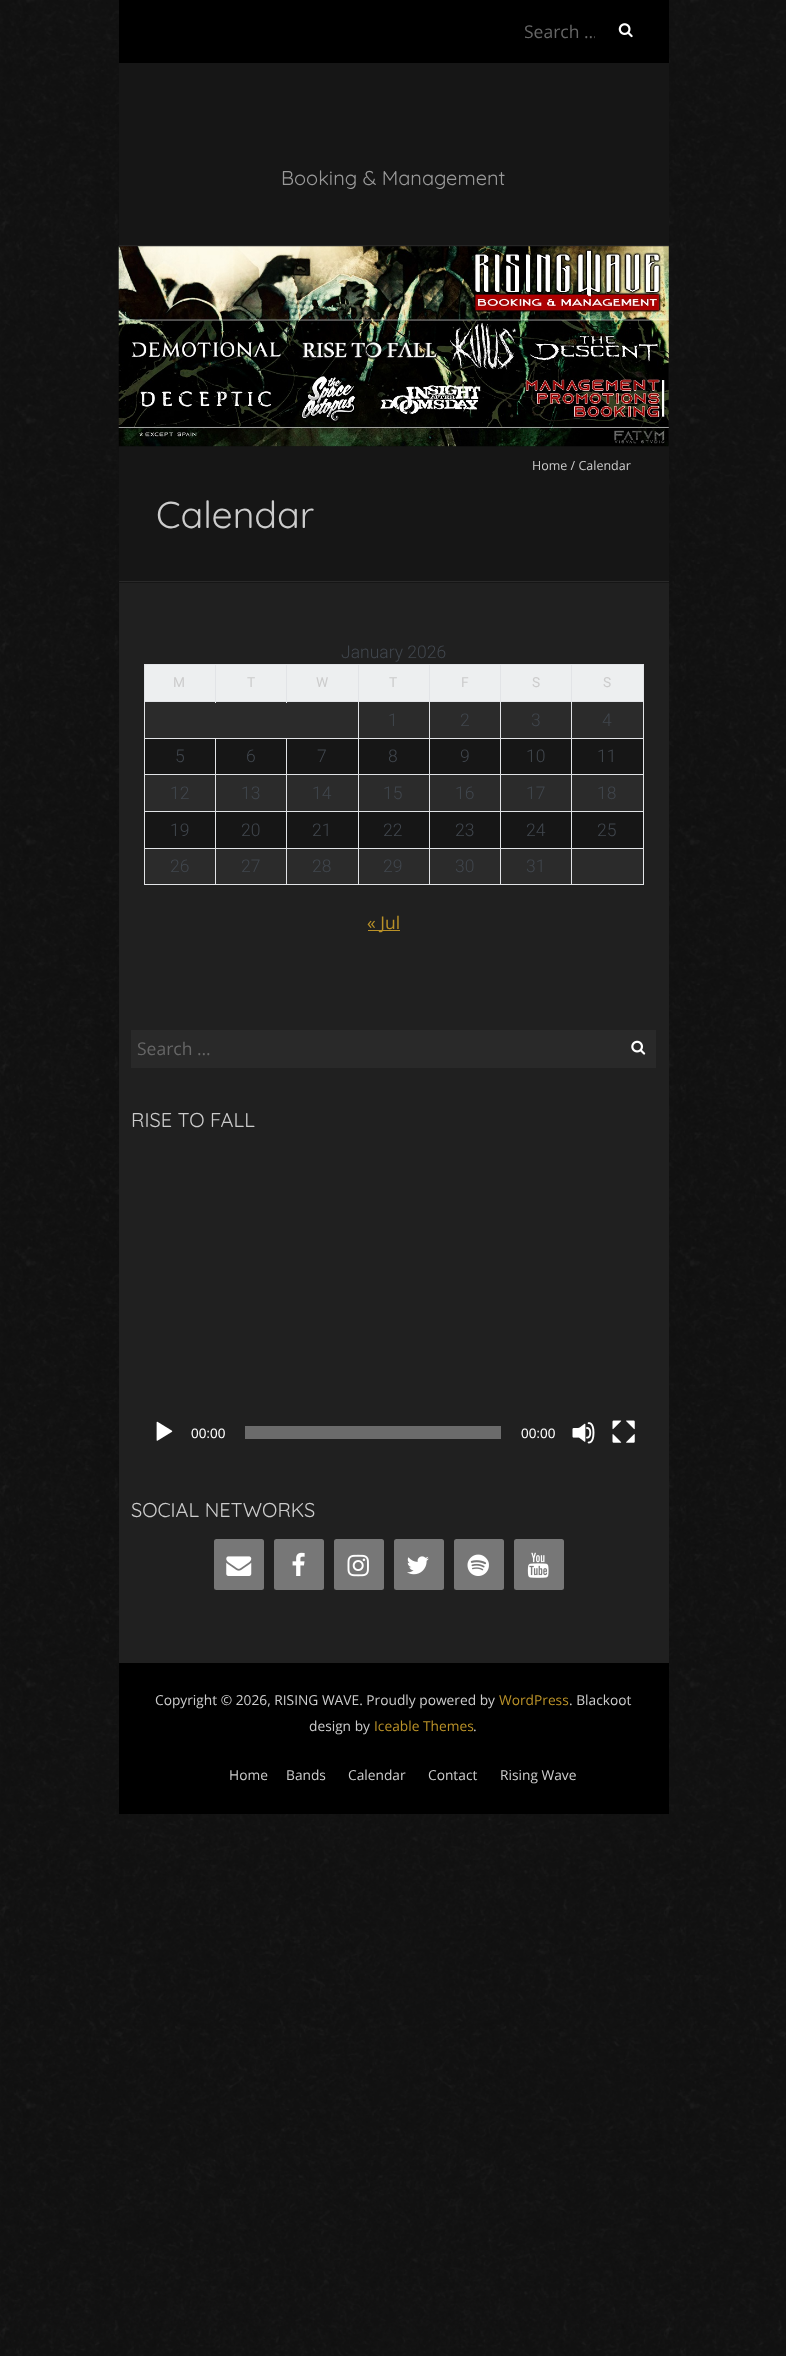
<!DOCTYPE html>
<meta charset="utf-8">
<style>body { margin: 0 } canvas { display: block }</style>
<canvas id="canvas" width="786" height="2356"></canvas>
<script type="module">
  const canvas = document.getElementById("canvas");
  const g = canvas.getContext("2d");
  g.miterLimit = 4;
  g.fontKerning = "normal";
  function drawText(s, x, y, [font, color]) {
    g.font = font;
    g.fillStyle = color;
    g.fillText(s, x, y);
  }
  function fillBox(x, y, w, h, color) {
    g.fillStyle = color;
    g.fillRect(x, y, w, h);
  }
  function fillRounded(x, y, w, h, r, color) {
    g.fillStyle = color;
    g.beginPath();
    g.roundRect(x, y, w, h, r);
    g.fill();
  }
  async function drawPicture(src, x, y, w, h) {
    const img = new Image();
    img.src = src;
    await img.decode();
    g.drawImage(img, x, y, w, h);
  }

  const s1 = ["17.5px Open Sans", "#666666"];
  const s2 = ["20px Quicksand", "#999999"];
  const s3 = ["12.5px Open Sans", "#CCCCCC"];
  const s4 = ["37.5px Quicksand", "#CCCCCC"];
  const s5 = ["300 17.5px Roboto", "#40464D"];
  const s6 = ["13.75px Roboto", "#CCCCCC"];
  const s7 = ["17.5px Open Sans", "#B99128"];
  const s8 = ["20px Quicksand", "#CCCCCC"];
  const s9 = ["13.75px Liberation Sans", "#FFFFFF"];
  const s10 = ["13.75px Open Sans", "#CCCCCC"];
  const s11 = ["13.75px Open Sans", "#B99128"];

  fillBox(0, 0, 786, 2356, "#FFFFFF");
  await drawPicture("pic1.png", 0, 0, 786, 2356);
  fillBox(119, 246, 550, 1417, "#202020");
  fillBox(119, 0, 550, 63, "#000000");
  g.save();
  g.beginPath();
  g.rect(525, 20, 70, 24);
  g.clip();
  drawText("Search …", 524, 38, s1);
  g.restore();
  await drawPicture("pic2.png", 618, 23, 15, 15);
  fillBox(119, 63, 550, 182, "#161616");
  drawText("Booking & Management", 281, 185, s2);
  fillBox(119, 245, 550, 1, "#252525");
  await drawPicture("pic3.png", 118, 246, 551, 201);
  fillBox(119, 446, 550, 137, "rgba(0, 0, 0, 0.3)");
  fillBox(119, 581, 550, 1, "#292929");
  drawText("Home / Calendar", 532, 470, s3);
  drawText("Calendar", 156, 528, s4);
  drawText("January 2026", 341, 658, s5);
  fillBox(145, 665, 70, 36, "#EDEFF0");
  fillBox(571, 664, 73, 1, "#E2E4E7");
  fillBox(145, 702, 498, 36, "#2B2B2B");
  fillBox(571, 701, 73, 1, "#E2E4E7");
  fillBox(571, 738, 73, 1, "#E2E4E7");
  fillBox(145, 739, 498, 35, "#161616");
  fillBox(571, 774, 73, 1, "#E2E4E7");
  fillBox(145, 775, 498, 36, "#2B2B2B");
  fillBox(145, 812, 498, 36, "#161616");
  fillBox(571, 811, 73, 1, "#E2E4E7");
  fillBox(571, 848, 73, 1, "#E2E4E7");
  fillBox(145, 849, 498, 35, "#2B2B2B");
  fillBox(643, 848, 1, 37, "#E2E4E7");
  fillBox(571, 884, 73, 1, "#E2E4E7");
  fillBox(571, 848, 1, 37, "#E2E4E7");
  fillBox(500, 848, 73, 1, "#E2E4E7");
  fillBox(571, 811, 1, 38, "#E2E4E7");
  fillBox(500, 811, 73, 1, "#E2E4E7");
  fillBox(571, 774, 1, 39, "#E2E4E7");
  fillBox(500, 774, 73, 1, "#E2E4E7");
  fillBox(571, 738, 1, 37, "#E2E4E7");
  fillBox(500, 738, 73, 1, "#E2E4E7");
  fillBox(571, 701, 1, 38, "#E2E4E7");
  fillBox(500, 701, 73, 1, "#E2E4E7");
  fillBox(571, 664, 1, 39, "#E2E4E7");
  fillBox(500, 664, 73, 1, "#E2E4E7");
  fillBox(500, 884, 73, 1, "#E2E4E7");
  fillBox(500, 848, 1, 37, "#E2E4E7");
  fillBox(429, 848, 72, 1, "#E2E4E7");
  fillBox(500, 811, 1, 38, "#E2E4E7");
  fillBox(429, 811, 72, 1, "#E2E4E7");
  fillBox(500, 774, 1, 39, "#E2E4E7");
  fillBox(429, 774, 72, 1, "#E2E4E7");
  fillBox(500, 738, 1, 37, "#E2E4E7");
  fillBox(429, 738, 72, 1, "#E2E4E7");
  fillBox(500, 701, 1, 38, "#E2E4E7");
  fillBox(429, 701, 72, 1, "#E2E4E7");
  fillBox(500, 664, 1, 39, "#E2E4E7");
  fillBox(429, 664, 72, 1, "#E2E4E7");
  fillBox(429, 884, 72, 1, "#E2E4E7");
  fillBox(429, 848, 1, 37, "#E2E4E7");
  fillBox(358, 848, 72, 1, "#E2E4E7");
  fillBox(429, 811, 1, 38, "#E2E4E7");
  fillBox(358, 811, 72, 1, "#E2E4E7");
  fillBox(429, 774, 1, 39, "#E2E4E7");
  fillBox(358, 774, 72, 1, "#E2E4E7");
  fillBox(429, 738, 1, 37, "#E2E4E7");
  fillBox(358, 738, 72, 1, "#E2E4E7");
  fillBox(429, 701, 1, 38, "#E2E4E7");
  fillBox(358, 701, 72, 1, "#E2E4E7");
  fillBox(429, 664, 1, 39, "#E2E4E7");
  fillBox(358, 664, 72, 1, "#E2E4E7");
  fillBox(358, 884, 72, 1, "#E2E4E7");
  fillBox(358, 848, 1, 37, "#E2E4E7");
  fillBox(286, 848, 73, 1, "#E2E4E7");
  fillBox(358, 811, 1, 38, "#E2E4E7");
  fillBox(286, 811, 73, 1, "#E2E4E7");
  fillBox(358, 774, 1, 39, "#E2E4E7");
  fillBox(286, 774, 73, 1, "#E2E4E7");
  fillBox(358, 738, 1, 37, "#E2E4E7");
  fillBox(286, 738, 73, 1, "#E2E4E7");
  fillBox(358, 701, 1, 38, "#E2E4E7");
  fillBox(144, 701, 215, 1, "#E2E4E7");
  fillBox(358, 664, 1, 39, "#E2E4E7");
  fillBox(286, 664, 73, 1, "#E2E4E7");
  fillBox(286, 664, 1, 39, "#E2E4E7");
  fillBox(215, 664, 73, 1, "#E2E4E7");
  fillBox(215, 664, 1, 39, "#E2E4E7");
  fillBox(144, 664, 72, 1, "#E2E4E7");
  fillBox(286, 884, 73, 1, "#E2E4E7");
  fillBox(286, 848, 1, 37, "#E2E4E7");
  fillBox(215, 848, 73, 1, "#E2E4E7");
  fillBox(286, 811, 1, 38, "#E2E4E7");
  fillBox(215, 811, 73, 1, "#E2E4E7");
  fillBox(286, 774, 1, 39, "#E2E4E7");
  fillBox(215, 774, 73, 1, "#E2E4E7");
  fillBox(286, 738, 1, 37, "#E2E4E7");
  fillBox(215, 738, 73, 1, "#E2E4E7");
  fillBox(215, 884, 73, 1, "#E2E4E7");
  fillBox(215, 848, 1, 37, "#E2E4E7");
  fillBox(144, 848, 72, 1, "#E2E4E7");
  fillBox(215, 811, 1, 38, "#E2E4E7");
  fillBox(144, 811, 72, 1, "#E2E4E7");
  fillBox(215, 774, 1, 39, "#E2E4E7");
  fillBox(144, 774, 72, 1, "#E2E4E7");
  fillBox(215, 738, 1, 37, "#E2E4E7");
  fillBox(144, 738, 72, 1, "#E2E4E7");
  fillBox(144, 884, 72, 1, "#E2E4E7");
  fillBox(144, 848, 1, 37, "#E2E4E7");
  fillBox(144, 811, 1, 38, "#E2E4E7");
  fillBox(144, 774, 1, 39, "#E2E4E7");
  fillBox(144, 738, 1, 37, "#E2E4E7");
  fillBox(144, 701, 1, 38, "#E2E4E7");
  fillBox(144, 664, 1, 39, "#E2E4E7");
  drawText("M", 173, 687, s6);
  fillBox(216, 665, 70, 36, "#EDEFF0");
  drawText("T", 247, 687, s6);
  fillBox(287, 665, 71, 36, "#EDEFF0");
  drawText("W", 316, 687, s6);
  fillBox(359, 665, 70, 36, "#EDEFF0");
  drawText("T", 389, 687, s6);
  fillBox(430, 665, 70, 36, "#EDEFF0");
  drawText("F", 461, 687, s6);
  fillBox(501, 665, 70, 36, "#EDEFF0");
  drawText("S", 532, 687, s6);
  fillBox(572, 665, 71, 36, "#EDEFF0");
  fillBox(643, 811, 1, 38, "#E2E4E7");
  fillBox(643, 774, 1, 39, "#E2E4E7");
  fillBox(643, 738, 1, 37, "#E2E4E7");
  fillBox(643, 701, 1, 38, "#E2E4E7");
  fillBox(643, 664, 1, 39, "#E2E4E7");
  drawText("S", 603, 687, s6);
  drawText("1", 388, 726, s5);
  drawText("2", 460, 726, s5);
  drawText("3", 531, 726, s5);
  drawText("4", 602, 726, s5);
  drawText("5", 175, 762, s5);
  drawText("6", 246, 762, s5);
  drawText("7", 317, 762, s5);
  drawText("8", 388, 762, s5);
  drawText("9", 460, 762, s5);
  drawText("10", 526, 762, s5);
  drawText("11", 597, 762, s5);
  drawText("12", 170, 799, s5);
  drawText("13", 241, 799, s5);
  drawText("14", 312, 799, s5);
  drawText("15", 383, 799, s5);
  drawText("16", 455, 799, s5);
  drawText("17", 526, 799, s5);
  drawText("18", 597, 799, s5);
  drawText("19", 170, 836, s5);
  drawText("20", 241, 836, s5);
  drawText("21", 312, 836, s5);
  drawText("22", 383, 836, s5);
  drawText("23", 455, 836, s5);
  drawText("24", 526, 836, s5);
  drawText("25", 597, 836, s5);
  drawText("26", 170, 872, s5);
  drawText("27", 241, 872, s5);
  drawText("28", 312, 872, s5);
  drawText("29", 383, 872, s5);
  drawText("30", 455, 872, s5);
  drawText("31", 526, 872, s5);
  fillBox(368, 930, 32, 1, "#B99128");
  drawText("« Jul", 367, 929, s7);
  fillBox(131, 1030, 525, 38, "#292929");
  drawText("Search …", 137, 1055, s1);
  await drawPicture("pic4.png", 631, 1040, 15, 15);
  drawText("RISE TO FALL", 131, 1127, s8);
  await drawPicture("pic5.png", 156, 1421, 17, 20);
  drawText("00:00", 191, 1438, s9);
  fillBox(245, 1426, 256, 13, "#6B6B6B");
  drawText("00:00", 521, 1438, s9);
  await drawPicture("pic6.png", 572, 1422, 23, 22);
  await drawPicture("pic7.png", 612, 1420, 23, 23);
  drawText("SOCIAL NETWORKS", 131, 1517, s8);
  fillRounded(214, 1539, 50, 51, 2.5, "#777777");
  await drawPicture("pic8.png", 226, 1556, 26, 20);
  fillRounded(274, 1539, 50, 51, 2.5, "#777777");
  await drawPicture("pic9.png", 292, 1552, 13, 24);
  fillRounded(334, 1539, 50, 51, 2.5, "#777777");
  await drawPicture("pic10.png", 347, 1554, 22, 23);
  fillRounded(394, 1539, 50, 51, 2.5, "#777777");
  await drawPicture("pic11.png", 407, 1556, 22, 19);
  fillRounded(454, 1539, 50, 51, 2.5, "#777777");
  await drawPicture("pic12.png", 467, 1554, 22, 22);
  fillRounded(514, 1539, 50, 51, 2.5, "#777777");
  await drawPicture("pic13.png", 527, 1552, 22, 26);
  fillBox(119, 1663, 550, 151, "#000000");
  drawText("Copyright © 2026, RISING WAVE. Proudly powered by", 155, 1705, s10);
  drawText("WordPress", 499, 1705, s11);
  drawText(". Blackoot", 569, 1705, s10);
  drawText("design by", 309, 1731, s10);
  drawText("Iceable Themes", 374, 1731, s11);
  drawText(".", 473, 1731, s10);
  drawText("Home", 229, 1780, s10);
  drawText("Bands", 286, 1780, s10);
  drawText("Calendar", 348, 1780, s10);
  drawText("Contact", 428, 1780, s10);
  drawText("Rising Wave", 500, 1780, s10);
</script>
